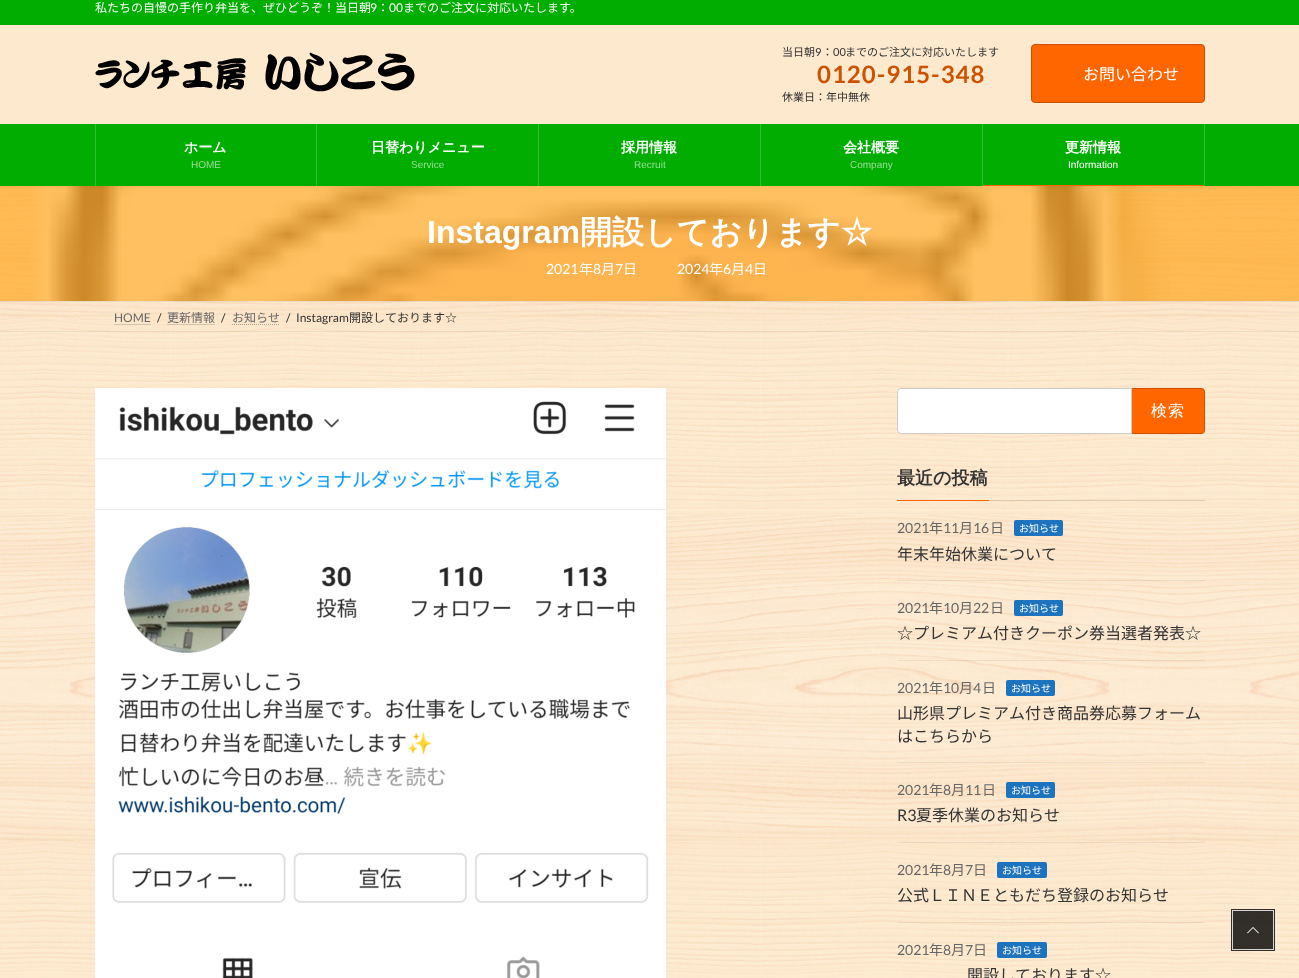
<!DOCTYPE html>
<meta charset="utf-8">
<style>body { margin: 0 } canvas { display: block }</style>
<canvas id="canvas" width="1299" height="978"></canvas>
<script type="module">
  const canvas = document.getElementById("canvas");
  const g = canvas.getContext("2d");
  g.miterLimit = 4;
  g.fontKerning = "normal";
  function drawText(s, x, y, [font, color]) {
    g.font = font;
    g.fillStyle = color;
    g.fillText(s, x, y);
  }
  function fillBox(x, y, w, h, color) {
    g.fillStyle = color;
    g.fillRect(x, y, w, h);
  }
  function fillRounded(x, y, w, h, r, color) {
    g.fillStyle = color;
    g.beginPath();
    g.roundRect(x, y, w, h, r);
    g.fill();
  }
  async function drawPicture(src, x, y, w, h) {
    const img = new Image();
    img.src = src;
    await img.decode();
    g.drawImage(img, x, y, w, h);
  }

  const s1 = ["12px Noto Sans JP", "#FFFFFF"];
  const s2 = ["12px Lato", "#FFFFFF"];
  const s3 = ["11px Noto Sans JP", "#333333"];
  const s4 = ["11px Lato", "#333333"];
  const s5 = ["bold 24px Lato", "#CC5200"];
  const s6 = ["16px Noto Sans JP", "#FFFFFF"];
  const s7 = ["bold 14px WenQuanYi Zen Hei", "#FFFFFF"];
  const s8 = ["10px Liberation Sans", "#99DE99"];
  const s9 = ["10px Liberation Sans", "#FFFFFF"];
  const s10 = ["bold 32px Liberation Sans", "#FFFFFF"];
  const s11 = ["bold 32px WenQuanYi Zen Hei", "#FFFFFF"];
  const s12 = ["14px Lato", "#FFFFFF"];
  const s13 = ["14px Noto Sans JP", "#FFFFFF"];
  const s14 = ["12px Lato", "#666666"];
  const s15 = ["12px Lato", "#333333"];
  const s16 = ["12px Noto Sans JP", "#666666"];
  const s17 = ["12px Noto Sans JP", "#333333"];
  const s18 = ["500 16px WenQuanYi Zen Hei", "#FFFFFF"];
  const s19 = ["bold 18px WenQuanYi Zen Hei", "#333333"];
  const s20 = ["14px Lato", "#666666"];
  const s21 = ["14px Noto Sans JP", "#666666"];
  const s22 = ["10px Noto Sans JP", "#FFFFFF"];
  const s23 = ["16px Noto Sans JP", "#333333"];
  const s24 = ["16px Lato", "#333333"];

  fillBox(0, 0, 1299, 978, "#FFFFFF");
  await drawPicture("pic1.png", 0, 186, 1299, 792);
  await drawPicture("pic3.png", 30, 186, 1140, 115);
  fillBox(0, 186, 1299, 115, "rgba(255, 165, 30, 0.7)");
  g.fillStyle = "rgba(0, 0, 0, 0.05)";
  g.filter = "blur(1.5px)";
  g.beginPath();
  g.rect(0, -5, 1299, 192);
  g.fill();
  g.filter = "none";
  fillBox(0, 25, 1299, 99, "#FDE9CE");
  fillBox(0, 0, 1299, 24, "#01AD01");
  fillBox(0, 24, 1299, 1, "#01A601");
  drawText("私たちの自慢の手作り弁当を、ぜひどうぞ！当日朝", 95, 12, s1);
  drawText("9", 370, 12, s2);
  drawText("：", 377, 12, s1);
  drawText("00", 389, 12, s2);
  drawText("までのご注文に対応いたします。", 403, 12, s1);
  await drawPicture("pic2.png", 95, 52, 320, 40);
  drawText("当日朝", 782, 56, s3);
  drawText("9", 815, 56, s4);
  drawText("：", 822, 56, s3);
  drawText("00", 833, 56, s4);
  drawText("までのご注文に対応いたします", 845, 56, s3);
  g.letterSpacing = "1px";
  drawText("0120-915-348", 817, 83, s5);
  g.letterSpacing = "0px";
  drawText("休業日：年中無休", 782, 101, s3);
  g.fillStyle = "#FF6600";
  g.beginPath();
  g.roundRect(1031.5, 44.5, 173, 58, 3.5);
  g.fill();
  g.strokeStyle = "#CC5200";
  g.stroke();
  drawText("お問い合わせ", 1083, 80, s6);
  fillBox(0, 124, 1299, 62, "#01AD01");
  fillBox(316, 124, 1, 62, "#34BD34");
  fillBox(95, 124, 1, 62, "#34BD34");
  drawText("ホーム", 184, 152, s7);
  drawText("HOME", 191, 168, s8);
  fillBox(538, 124, 1, 62, "#34BD34");
  drawText("日替わりメニュー", 371, 152, s7);
  drawText("Service", 411, 168, s8);
  fillBox(760, 124, 1, 62, "#34BD34");
  drawText("採用情報", 621, 152, s7);
  drawText("Recruit", 634, 168, s8);
  fillBox(982, 124, 1, 62, "#34BD34");
  drawText("会社概要", 843, 152, s7);
  drawText("Company", 850, 168, s8);
  fillBox(1204, 124, 1, 62, "#34BD34");
  drawText("更新情報", 1065, 152, s7);
  drawText("Information", 1068, 168, s9);
  fillBox(983, 185, 221, 1, "#FF6600");
  drawText("Instagram", 427, 243, s10);
  drawText("開設しております☆", 580, 243, s11);
  drawText("2021", 546, 274, s12);
  drawText("年", 579, 274, s13);
  drawText("8", 593, 274, s12);
  drawText("月", 601, 274, s13);
  drawText("7", 615, 274, s12);
  drawText("日", 623, 274, s13);
  drawText("2024", 677, 274, s12);
  drawText("年", 709, 274, s13);
  drawText("6", 723, 274, s12);
  drawText("月", 731, 274, s13);
  drawText("4", 745, 274, s12);
  drawText("日", 753, 274, s13);
  fillBox(0, 301, 1299, 1, "rgba(0, 0, 0, 0.06)");
  fillBox(0, 331, 1299, 1, "rgba(0, 0, 0, 0.06)");
  drawText("HOME", 114, 322, s14);
  g.beginPath();
  g.moveTo(114.5, 324.5);
  g.lineTo(151, 324.5);
  g.strokeStyle = "#AFA18E";
  g.setLineDash([1, 1]);
  g.stroke();
  drawText("/", 157, 322, s15);
  drawText("更新情報", 167, 322, s16);
  g.beginPath();
  g.moveTo(167.5, 324.5);
  g.lineTo(215.5, 324.5);
  g.strokeStyle = "rgba(0, 0, 0, 0.3)";
  g.stroke();
  drawText("/", 221, 322, s15);
  drawText("お知らせ", 232, 322, s16);
  g.beginPath();
  g.moveTo(232, 324.5);
  g.lineTo(279.5, 324.5);
  g.stroke();
  drawText("/", 286, 322, s15);
  drawText("Instagram", 296, 322, s15);
  drawText("開設しております☆", 349, 322, s17);
  await drawPicture("pic4.png", 95, 388, 571, 590);
  g.fillStyle = "#FFFFFF";
  g.beginPath();
  g.roundRect(897, 388, 235, 46, [4, 0, 0, 4]);
  g.fill();
  g.beginPath();
  g.roundRect(897.5, 388.5, 234, 45, [3.5, 0, 0, 3.5]);
  g.strokeStyle = "rgba(0, 0, 0, 0.2)";
  g.setLineDash([]);
  g.stroke();
  g.fillStyle = "#FF6600";
  g.beginPath();
  g.roundRect(1132, 388, 73, 46, [0, 4, 4, 0]);
  g.fill();
  g.fillStyle = "rgba(0, 0, 0, 0.2)";
  g.beginPath();
  g.moveTo(1132, 388);
  g.lineTo(1201, 388);
  g.bezierCurveTo(1203, 388, 1205, 390, 1205, 392);
  g.lineTo(1205, 430);
  g.bezierCurveTo(1205, 432, 1203, 434, 1201, 434);
  g.lineTo(1132, 434);
  g.closePath();
  g.moveTo(1132, 389);
  g.lineTo(1201, 389);
  g.bezierCurveTo(1203, 389, 1204, 390, 1204, 392);
  g.lineTo(1204, 430);
  g.bezierCurveTo(1204, 432, 1203, 433, 1201, 433);
  g.lineTo(1132, 433);
  g.closePath();
  g.fill("evenodd");
  g.letterSpacing = "1px";
  drawText("検索", 1151, 416, s18);
  fillBox(989, 500, 216, 1, "rgba(0, 0, 0, 0.12)");
  g.letterSpacing = "0px";
  drawText("最近の投稿", 897, 484, s19);
  fillBox(897, 500, 92, 1, "#FF6600");
  fillBox(897, 580, 308, 1, "rgba(0, 0, 0, 0.06)");
  drawText("2021", 897, 533, s20);
  drawText("年", 929, 533, s21);
  drawText("11", 943, 533, s20);
  drawText("月", 959, 533, s21);
  drawText("16", 973, 533, s20);
  drawText("日", 990, 533, s21);
  fillRounded(1014, 520, 49, 16, 2, "#1E73BE");
  drawText("お知らせ", 1019, 532, s22);
  drawText("年末年始休業について", 897, 560, s23);
  fillBox(897, 660, 308, 1, "rgba(0, 0, 0, 0.06)");
  drawText("2021", 897, 613, s20);
  drawText("年", 929, 613, s21);
  drawText("10", 943, 613, s20);
  drawText("月", 959, 613, s21);
  drawText("22", 973, 613, s20);
  drawText("日", 990, 613, s21);
  fillRounded(1014, 600, 49, 16, 2, "#1E73BE");
  drawText("お知らせ", 1019, 612, s22);
  drawText("☆プレミアム付きクーポン券当選者発表☆", 897, 639, s23);
  fillBox(897, 762, 308, 1, "rgba(0, 0, 0, 0.06)");
  drawText("2021", 897, 693, s20);
  drawText("年", 929, 693, s21);
  drawText("10", 943, 693, s20);
  drawText("月", 959, 693, s21);
  drawText("4", 973, 693, s20);
  drawText("日", 982, 693, s21);
  fillRounded(1006, 680, 49, 16, 2, "#1E73BE");
  drawText("お知らせ", 1011, 692, s22);
  drawText("山形県プレミアム付き商品券応募フォーム", 897, 719, s23);
  drawText("はこちらから", 897, 742, s23);
  fillBox(897, 842, 308, 1, "rgba(0, 0, 0, 0.06)");
  drawText("2021", 897, 795, s20);
  drawText("年", 929, 795, s21);
  drawText("8", 943, 795, s20);
  drawText("月", 951, 795, s21);
  drawText("11", 965, 795, s20);
  drawText("日", 982, 795, s21);
  fillRounded(1006, 782, 49, 16, 2, "#1E73BE");
  drawText("お知らせ", 1011, 794, s22);
  drawText("R3", 897, 821, s24);
  drawText("夏季休業のお知らせ", 916, 821, s23);
  fillBox(897, 922, 308, 1, "rgba(0, 0, 0, 0.06)");
  drawText("2021", 897, 875, s20);
  drawText("年", 929, 875, s21);
  drawText("8", 943, 875, s20);
  drawText("月", 951, 875, s21);
  drawText("7", 965, 875, s20);
  drawText("日", 973, 875, s21);
  fillRounded(997, 862, 50, 16, 2, "#1E73BE");
  drawText("お知らせ", 1002, 874, s22);
  drawText("公式ＬＩＮＥともだち登録のお知らせ", 897, 901, s23);
  drawText("2021", 897, 955, s20);
  drawText("年", 929, 955, s21);
  drawText("8", 943, 955, s20);
  drawText("月", 951, 955, s21);
  drawText("7", 965, 955, s20);
  drawText("日", 973, 955, s21);
  fillRounded(997, 942, 50, 16, 2, "#1E73BE");
  drawText("お知らせ", 1002, 954, s22);
  drawText("開設しております☆", 967, 981, s23);
  g.strokeStyle = "rgba(0, 0, 0, 0.8)";
  g.lineWidth = 2;
  g.strokeRect(1232, 910, 42, 40);
  g.strokeStyle = "rgba(255, 255, 255, 0.8)";
  g.lineWidth = 1;
  g.strokeRect(1232.5, 910.5, 41, 39);
  fillBox(1233, 911, 40, 38, "rgba(0, 0, 0, 0.8)");
  await drawPicture("pic5.png", 1247, 927, 12, 7);
</script>
